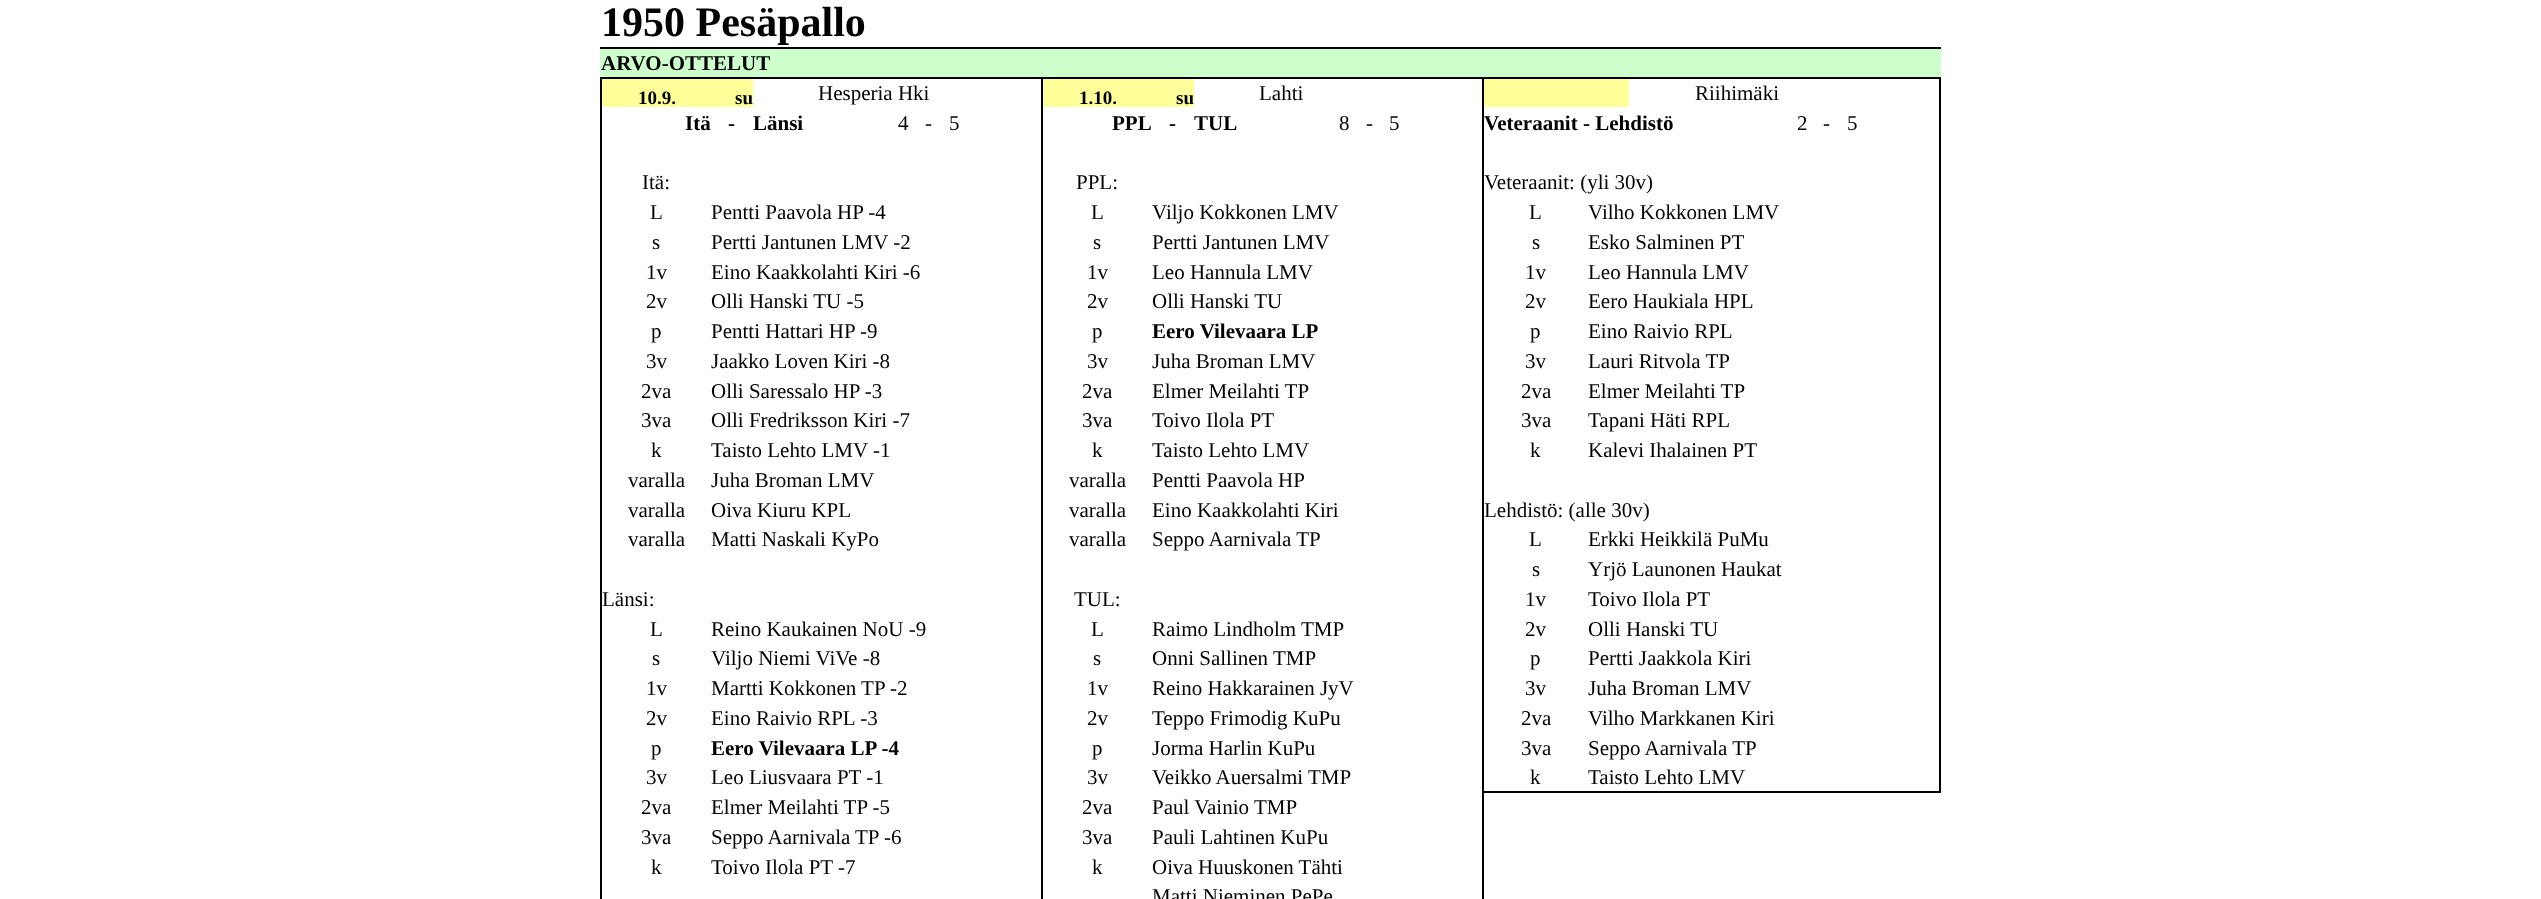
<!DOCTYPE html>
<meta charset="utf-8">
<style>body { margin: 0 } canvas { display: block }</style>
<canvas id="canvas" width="2541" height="899"></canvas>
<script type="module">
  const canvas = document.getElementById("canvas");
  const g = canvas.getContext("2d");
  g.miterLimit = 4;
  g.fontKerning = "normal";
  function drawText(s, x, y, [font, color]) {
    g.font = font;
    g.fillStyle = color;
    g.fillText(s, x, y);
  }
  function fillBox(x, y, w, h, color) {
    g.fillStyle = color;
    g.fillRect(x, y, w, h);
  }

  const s1 = ["bold 42px Liberation Serif", "#000000"];
  const s2 = ["bold 21px Liberation Serif", "#000000"];
  const s3 = ["bold 19px Liberation Serif", "#000000"];
  const s4 = ["21px Liberation Serif", "#000000"];

  fillBox(0, 0, 2541, 899, "#FFFFFF");
  drawText("1950 Pesäpallo", 601, 36, s1);
  fillBox(600, 47, 1341, 2, "#000000");
  fillBox(1939, 77, 2, 716, "#000000");
  fillBox(1482, 791, 2, 108, "#000000");
  fillBox(1482, 791, 459, 2, "#000000");
  fillBox(1482, 77, 2, 716, "#000000");
  fillBox(1388, 77, 420, 2, "#000000");
  fillBox(1806, 77, 135, 2, "#000000");
  fillBox(600, 49, 1341, 28, "#CCFFCC");
  drawText("ARVO-OTTELUT", 601, 70, s2);
  fillBox(602, 79, 151, 28, "#FFFF99");
  drawText("10.9.", 638, 104, s3);
  drawText("su", 735, 104, s3);
  fillBox(1041, 77, 2, 822, "#000000");
  fillBox(1041, 77, 349, 2, "#000000");
  fillBox(600, 77, 2, 822, "#000000");
  fillBox(600, 77, 443, 2, "#000000");
  drawText("Hesperia Hki", 818, 100, s4);
  fillBox(1043, 79, 151, 28, "#FFFF99");
  drawText("1.10.", 1079, 104, s3);
  drawText("su", 1176, 104, s3);
  drawText("Lahti", 1259, 100, s4);
  fillBox(1484, 79, 145, 28, "#FFFF99");
  drawText("Riihimäki", 1695, 100, s4);
  drawText("Itä", 685, 130, s2);
  drawText("-", 728, 130, s2);
  drawText("Länsi", 753, 130, s2);
  drawText("4", 898, 130, s4);
  drawText("-", 925, 130, s4);
  drawText("5", 949, 130, s4);
  drawText("PPL", 1112, 130, s2);
  drawText("-", 1169, 130, s2);
  drawText("TUL", 1194, 130, s2);
  drawText("8", 1339, 130, s4);
  drawText("-", 1366, 130, s4);
  drawText("5", 1389, 130, s4);
  drawText("Veteraanit - Lehdistö", 1484, 130, s2);
  drawText("2", 1797, 130, s4);
  drawText("-", 1823, 130, s4);
  drawText("5", 1847, 130, s4);
  drawText("Itä:", 642, 189, s4);
  drawText("PPL:", 1076, 189, s4);
  drawText("Veteraanit: (yli 30v)", 1484, 189, s4);
  drawText("L", 650, 219, s4);
  drawText("Pentti Paavola HP -4", 711, 219, s4);
  drawText("L", 1091, 219, s4);
  drawText("Viljo Kokkonen LMV", 1152, 219, s4);
  drawText("L", 1529, 219, s4);
  drawText("Vilho Kokkonen LMV", 1588, 219, s4);
  drawText("s", 652, 249, s4);
  drawText("Pertti Jantunen LMV -2", 711, 249, s4);
  drawText("s", 1093, 249, s4);
  drawText("Pertti Jantunen LMV", 1152, 249, s4);
  drawText("s", 1532, 249, s4);
  drawText("Esko Salminen PT", 1588, 249, s4);
  drawText("1v", 646, 279, s4);
  drawText("Eino Kaakkolahti Kiri -6", 711, 279, s4);
  drawText("1v", 1087, 279, s4);
  drawText("Leo Hannula LMV", 1152, 279, s4);
  drawText("1v", 1525, 279, s4);
  drawText("Leo Hannula LMV", 1588, 279, s4);
  drawText("2v", 646, 308, s4);
  drawText("Olli Hanski TU -5", 711, 308, s4);
  drawText("2v", 1087, 308, s4);
  drawText("Olli Hanski TU", 1152, 308, s4);
  drawText("2v", 1525, 308, s4);
  drawText("Eero Haukiala HPL", 1588, 308, s4);
  drawText("p", 651, 338, s4);
  drawText("Pentti Hattari HP -9", 711, 338, s4);
  drawText("p", 1092, 338, s4);
  drawText("Eero Vilevaara LP", 1152, 338, s2);
  drawText("p", 1530, 338, s4);
  drawText("Eino Raivio RPL", 1588, 338, s4);
  drawText("3v", 646, 368, s4);
  drawText("Jaakko Loven Kiri -8", 711, 368, s4);
  drawText("3v", 1087, 368, s4);
  drawText("Juha Broman LMV", 1152, 368, s4);
  drawText("3v", 1525, 368, s4);
  drawText("Lauri Ritvola TP", 1588, 368, s4);
  drawText("2va", 641, 398, s4);
  drawText("Olli Saressalo HP -3", 711, 398, s4);
  drawText("2va", 1082, 398, s4);
  drawText("Elmer Meilahti TP", 1152, 398, s4);
  drawText("2va", 1521, 398, s4);
  drawText("Elmer Meilahti TP", 1588, 398, s4);
  drawText("3va", 641, 427, s4);
  drawText("Olli Fredriksson Kiri -7", 711, 427, s4);
  drawText("3va", 1082, 427, s4);
  drawText("Toivo Ilola PT", 1152, 427, s4);
  drawText("3va", 1521, 427, s4);
  drawText("Tapani Häti RPL", 1588, 427, s4);
  drawText("k", 651, 457, s4);
  drawText("Taisto Lehto LMV -1", 711, 457, s4);
  drawText("k", 1092, 457, s4);
  drawText("Taisto Lehto LMV", 1152, 457, s4);
  drawText("k", 1530, 457, s4);
  drawText("Kalevi Ihalainen PT", 1588, 457, s4);
  drawText("varalla", 628, 487, s4);
  drawText("Juha Broman LMV", 711, 487, s4);
  drawText("varalla", 1069, 487, s4);
  drawText("Pentti Paavola HP", 1152, 487, s4);
  drawText("varalla", 628, 517, s4);
  drawText("Oiva Kiuru KPL", 711, 517, s4);
  drawText("varalla", 1069, 517, s4);
  drawText("Eino Kaakkolahti Kiri", 1152, 517, s4);
  drawText("Lehdistö: (alle 30v)", 1484, 517, s4);
  drawText("varalla", 628, 546, s4);
  drawText("Matti Naskali KyPo", 711, 546, s4);
  drawText("varalla", 1069, 546, s4);
  drawText("Seppo Aarnivala TP", 1152, 546, s4);
  drawText("L", 1529, 546, s4);
  drawText("Erkki Heikkilä PuMu", 1588, 546, s4);
  drawText("s", 1532, 576, s4);
  drawText("Yrjö Launonen Haukat", 1588, 576, s4);
  drawText("Länsi:", 602, 606, s4);
  drawText("TUL:", 1074, 606, s4);
  drawText("1v", 1525, 606, s4);
  drawText("Toivo Ilola PT", 1588, 606, s4);
  drawText("L", 650, 636, s4);
  drawText("Reino Kaukainen NoU -9", 711, 636, s4);
  drawText("L", 1091, 636, s4);
  drawText("Raimo Lindholm TMP", 1152, 636, s4);
  drawText("2v", 1525, 636, s4);
  drawText("Olli Hanski TU", 1588, 636, s4);
  drawText("s", 652, 665, s4);
  drawText("Viljo Niemi ViVe -8", 711, 665, s4);
  drawText("s", 1093, 665, s4);
  drawText("Onni Sallinen TMP", 1152, 665, s4);
  drawText("p", 1530, 665, s4);
  drawText("Pertti Jaakkola Kiri", 1588, 665, s4);
  drawText("1v", 646, 695, s4);
  drawText("Martti Kokkonen TP -2", 711, 695, s4);
  drawText("1v", 1087, 695, s4);
  drawText("Reino Hakkarainen JyV", 1152, 695, s4);
  drawText("3v", 1525, 695, s4);
  drawText("Juha Broman LMV", 1588, 695, s4);
  drawText("2v", 646, 725, s4);
  drawText("Eino Raivio RPL -3", 711, 725, s4);
  drawText("2v", 1087, 725, s4);
  drawText("Teppo Frimodig KuPu", 1152, 725, s4);
  drawText("2va", 1521, 725, s4);
  drawText("Vilho Markkanen Kiri", 1588, 725, s4);
  drawText("p", 651, 755, s4);
  drawText("Eero Vilevaara LP -4", 711, 755, s2);
  drawText("p", 1092, 755, s4);
  drawText("Jorma Harlin KuPu", 1152, 755, s4);
  drawText("3va", 1521, 755, s4);
  drawText("Seppo Aarnivala TP", 1588, 755, s4);
  drawText("3v", 646, 784, s4);
  drawText("Leo Liusvaara PT -1", 711, 784, s4);
  drawText("3v", 1087, 784, s4);
  drawText("Veikko Auersalmi TMP", 1152, 784, s4);
  drawText("k", 1530, 784, s4);
  drawText("Taisto Lehto LMV", 1588, 784, s4);
  drawText("2va", 641, 814, s4);
  drawText("Elmer Meilahti TP -5", 711, 814, s4);
  drawText("2va", 1082, 814, s4);
  drawText("Paul Vainio TMP", 1152, 814, s4);
  drawText("3va", 641, 844, s4);
  drawText("Seppo Aarnivala", 711, 844, s4);
  drawText("TP -6", 855, 844, s4);
  drawText("3va", 1082, 844, s4);
  drawText("Pauli Lahtinen KuPu", 1152, 844, s4);
  drawText("k", 651, 874, s4);
  drawText("Toivo Ilola PT -7", 711, 874, s4);
  drawText("k", 1092, 874, s4);
  drawText("Oiva Huuskonen Tähti", 1152, 874, s4);
  drawText("Matti Nieminen PePe", 1152, 903, s4);
</script>
